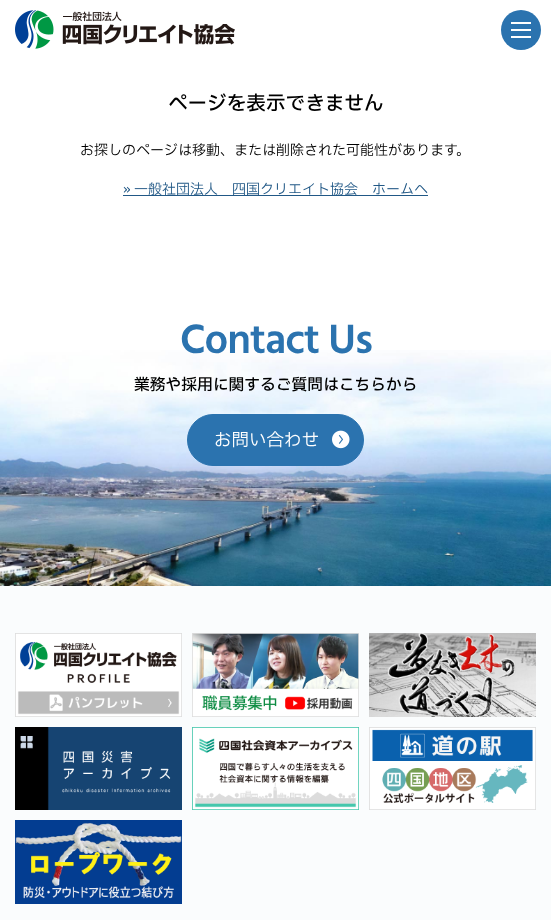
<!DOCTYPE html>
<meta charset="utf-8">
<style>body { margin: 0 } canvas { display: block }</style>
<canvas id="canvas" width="551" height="920"></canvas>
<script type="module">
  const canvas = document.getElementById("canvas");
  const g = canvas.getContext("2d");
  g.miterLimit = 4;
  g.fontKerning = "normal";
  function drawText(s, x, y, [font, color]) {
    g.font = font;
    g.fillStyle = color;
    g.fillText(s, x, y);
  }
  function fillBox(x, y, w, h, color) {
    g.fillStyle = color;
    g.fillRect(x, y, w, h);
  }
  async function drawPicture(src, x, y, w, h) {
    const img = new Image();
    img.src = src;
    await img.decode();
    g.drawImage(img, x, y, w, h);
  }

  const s1 = ["500 19.6px IBM Plex Sans JP", "#000000"];
  const s2 = ["14px IBM Plex Sans JP", "#000000"];
  const s3 = ["14px IBM Plex Sans JP", "#215886"];
  const s4 = ["600 42px Hind Madurai", "#2B73AF"];
  const s5 = ["500 15.75px IBM Plex Sans JP", "#000000"];
  const s6 = ["17.5px IBM Plex Sans JP", "#FFFFFF"];

  fillBox(0, 0, 551, 920, "#FFFFFF");
  await drawPicture("pic1.png", 15, 10, 220, 39);
  g.fillStyle = "#2B73AF";
  g.beginPath();
  g.arc(521, 30, 20, 0, Math.PI * 2);
  g.fill();
  fillBox(511, 22, 20, 2, "#FFFFFF");
  fillBox(511, 29, 20, 2, "#FFFFFF");
  fillBox(511, 36, 20, 2, "#FFFFFF");
  drawText("ページを表示できません", 168, 110, s1);
  drawText("お探しのページは移動、または削除された可能性があります。", 80, 155, s2);
  fillBox(123, 195, 305, 1, "#215886");
  drawText("» 一般社団法人　四国クリエイト協会　ホームへ", 123, 194, s3);
  await drawPicture("pic2.png", 0, 350, 551, 236);
  g.letterSpacing = "-1px";
  drawText("Contact Us", 180, 353, s4);
  g.letterSpacing = "0px";
  drawText("業務や採用に関するご質問はこちらから", 134, 390, s5);
  g.fillStyle = "#2B73AF";
  g.beginPath();
  g.roundRect(187.5, 414.5, 176, 51, 25.5);
  g.fill();
  g.strokeStyle = "#2B73AF";
  g.stroke();
  drawText("お問い合わせ", 214, 446, s6);
  await drawPicture("pic3.png", 332, 430, 18, 19);
  fillBox(0, 586, 551, 334, "#FAFCFD");
  await drawPicture("pic4.png", 15, 633, 167, 84);
  await drawPicture("pic5.png", 192, 633, 167, 84);
  await drawPicture("pic6.png", 369, 633, 167, 84);
  await drawPicture("pic7.png", 15, 727, 167, 83);
  await drawPicture("pic8.png", 192, 727, 167, 83);
  await drawPicture("pic9.png", 369, 727, 167, 83);
  await drawPicture("pic10.png", 15, 820, 167, 84);
</script>
